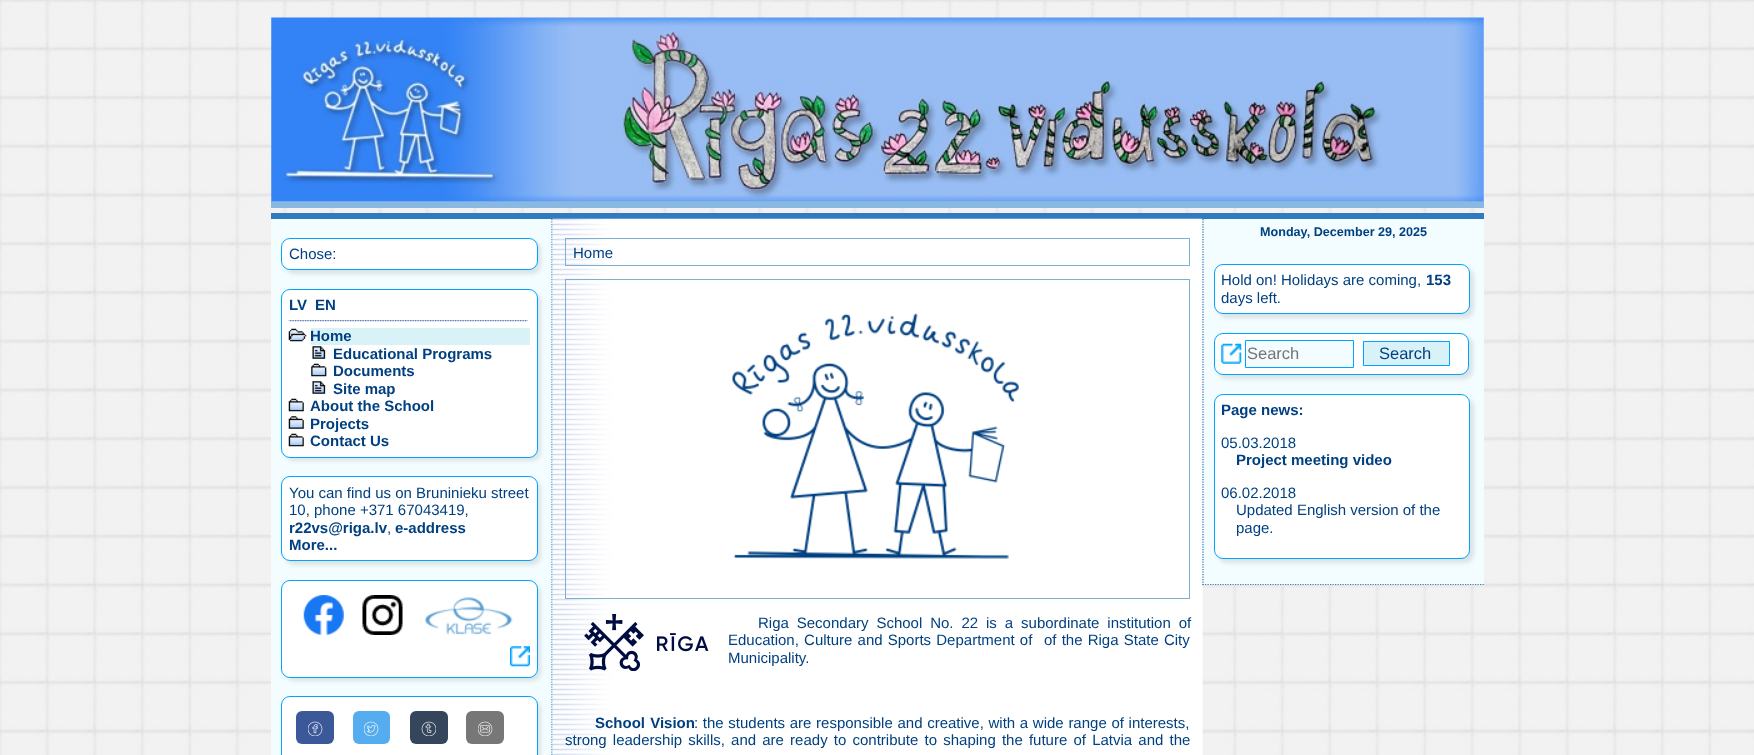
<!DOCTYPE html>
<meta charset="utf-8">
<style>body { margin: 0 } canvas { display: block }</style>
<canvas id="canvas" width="1754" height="755"></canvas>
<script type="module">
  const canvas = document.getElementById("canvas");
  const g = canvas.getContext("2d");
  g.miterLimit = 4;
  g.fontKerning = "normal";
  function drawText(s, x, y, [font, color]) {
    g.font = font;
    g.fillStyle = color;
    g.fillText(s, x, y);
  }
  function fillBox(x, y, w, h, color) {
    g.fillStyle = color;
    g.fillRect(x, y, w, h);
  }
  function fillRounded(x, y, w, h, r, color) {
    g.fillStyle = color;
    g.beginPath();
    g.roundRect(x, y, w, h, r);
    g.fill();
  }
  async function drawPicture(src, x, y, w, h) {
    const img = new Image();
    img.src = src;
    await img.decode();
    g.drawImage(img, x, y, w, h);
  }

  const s1 = ["15px Liberation Sans", "#004080"];
  const s2 = ["bold 15px Liberation Sans", "#004080"];
  const s3 = ["bold 12.6px Liberation Sans", "#004080"];
  const s4 = ["16.5px Liberation Sans", "#757575"];
  const s5 = ["16.5px Liberation Sans", "#004080"];

  fillBox(0, 0, 1754, 755, "#FFFFFF");
  await drawPicture("pic1.png", 0, 0, 1754, 755);
  fillBox(271, 213, 1213, 6, "#2F7BBD");
  fillBox(271, 201, 1213, 7, "#89B8E2");
  await drawPicture("pic2.png", 271, 17, 1213, 185);
  fillBox(271, 219, 282, 536, "#F3FDFF");
  g.beginPath();
  g.moveTo(552, 219);
  g.lineTo(552, 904);
  g.strokeStyle = "#2F7BBD";
  g.lineWidth = 1.2;
  g.setLineDash([1.25, 1.25]);
  g.stroke();
  g.fillStyle = "rgba(0, 0, 0, 0.1)";
  g.filter = "blur(2px)";
  g.beginPath();
  g.roundRect(285, 241, 256, 33, 9);
  g.fill();
  g.filter = "none";
  g.fillStyle = "#FFFFFF";
  g.beginPath();
  g.roundRect(281.5, 238.5, 256, 31, 8.5);
  g.fill();
  g.strokeStyle = "#00A4FE";
  g.lineWidth = 1;
  g.setLineDash([]);
  g.stroke();
  drawText("Chose:", 289, 259, s1);
  g.fillStyle = "rgba(0, 0, 0, 0.1)";
  g.filter = "blur(2px)";
  g.beginPath();
  g.roundRect(285, 293, 256, 168, 9);
  g.fill();
  g.filter = "none";
  g.fillStyle = "#FFFFFF";
  g.beginPath();
  g.roundRect(281.5, 289.5, 256, 168, 8.5);
  g.fill();
  g.stroke();
  drawText("LV", 289, 310, s2);
  drawText("EN", 315, 310, s2);
  await drawPicture("pic3.png", 288, 320, 240, 2);
  fillBox(311, 328, 219, 17, "#D8F2F7");
  await drawPicture("pic4.png", 288, 328, 19, 14);
  drawText("Home", 310, 341, s2);
  await drawPicture("pic5.png", 312, 346, 14, 13);
  drawText("Educational Programs", 333, 359, s2);
  await drawPicture("pic6.png", 311, 363, 16, 14);
  drawText("Documents", 333, 376, s2);
  await drawPicture("pic5.png", 312, 381, 14, 13);
  drawText("Site map", 333, 394, s2);
  await drawPicture("pic7.png", 288, 398, 16, 14);
  drawText("About the School", 310, 411, s2);
  await drawPicture("pic8.png", 288, 416, 16, 13);
  drawText("Projects", 310, 429, s2);
  await drawPicture("pic7.png", 288, 433, 16, 14);
  drawText("Contact Us", 310, 446, s2);
  g.fillStyle = "rgba(0, 0, 0, 0.1)";
  g.filter = "blur(2px)";
  g.beginPath();
  g.roundRect(285, 480, 256, 85, 9);
  g.fill();
  g.filter = "none";
  g.fillStyle = "#FFFFFF";
  g.beginPath();
  g.roundRect(281.5, 476.5, 256, 84, 8.5);
  g.fill();
  g.stroke();
  drawText("You can find us on Bruninieku street", 289, 498, s1);
  drawText("10, phone +371 67043419,", 289, 515, s1);
  drawText("r22vs@riga.lv", 289, 533, s2);
  drawText(",", 387, 533, s1);
  drawText("e-address", 395, 533, s2);
  drawText("More...", 289, 550, s2);
  g.fillStyle = "rgba(0, 0, 0, 0.1)";
  g.filter = "blur(2px)";
  g.beginPath();
  g.roundRect(285, 584, 256, 97, 9);
  g.fill();
  g.filter = "none";
  g.fillStyle = "#FFFFFF";
  g.beginPath();
  g.roundRect(281.5, 580.5, 256, 97, 8.5);
  g.fill();
  g.stroke();
  await drawPicture("pic9.png", 303, 595, 41, 40);
  await drawPicture("pic10.png", 362, 595, 41, 40);
  await drawPicture("pic11.png", 424, 597, 89, 38);
  await drawPicture("pic12.png", 510, 646, 20, 21);
  g.fillStyle = "rgba(0, 0, 0, 0.1)";
  g.filter = "blur(2px)";
  g.beginPath();
  g.roundRect(285, 700, 256, 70, 9);
  g.fill();
  g.filter = "none";
  g.fillStyle = "#FFFFFF";
  g.beginPath();
  g.roundRect(281.5, 696.5, 256, 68, 8.5);
  g.fill();
  g.stroke();
  fillRounded(296, 711, 38, 33, 6, "#3B5998");
  await drawPicture("pic13.png", 308, 721, 15, 15);
  fillRounded(353, 711, 37, 33, 6, "#55ACEE");
  await drawPicture("pic14.png", 364, 721, 15, 15);
  fillRounded(410, 711, 38, 33, 6, "#35465C");
  await drawPicture("pic15.png", 421, 721, 15, 15);
  fillRounded(466, 711, 38, 33, 6, "#777777");
  await drawPicture("pic16.png", 478, 721, 15, 15);
  await drawPicture("pic17.png", 552, 218, 651, 537);
  g.strokeStyle = "#7CAFD2";
  g.strokeRect(565.5, 238.5, 624, 27);
  drawText("Home", 573, 258, s1);
  g.strokeRect(565.5, 279.5, 624, 319);
  await drawPicture("pic18.png", 731, 313, 288, 246);
  await drawPicture("pic19.png", 584, 614, 125, 57);
  g.wordSpacing = "3.75px";
  drawText("Riga Secondary School No. 22 is a subordinate institution of", 758, 628, s1);
  g.wordSpacing = "1px";
  drawText("Education, Culture and Sports Department of", 728, 645, s1);
  drawText("of the Riga State City", 1044, 645, s1);
  g.wordSpacing = "0px";
  drawText("Municipality.", 728, 663, s1);
  g.wordSpacing = "1px";
  drawText("School Vision", 595, 728, s2);
  g.wordSpacing = "0.5px";
  drawText(": the students are responsible and creative, with a wide range of interests,", 694, 728, s1);
  g.wordSpacing = "2px";
  drawText("strong leadership skills, and are ready to contribute to shaping the future of Latvia and the", 565, 745, s1);
  fillBox(1203, 219, 281, 366, "#F3FDFF");
  g.beginPath();
  g.moveTo(1202.5, 584.5);
  g.lineTo(1484, 584.5);
  g.strokeStyle = "#2F7BBD";
  g.lineWidth = 1.2;
  g.setLineDash([1.25, 1.25]);
  g.stroke();
  g.beginPath();
  g.moveTo(1203, 219);
  g.lineTo(1203, 585);
  g.stroke();
  g.wordSpacing = "0px";
  drawText("Monday, December 29, 2025", 1260, 236, s3);
  g.fillStyle = "rgba(0, 0, 0, 0.1)";
  g.filter = "blur(2px)";
  g.beginPath();
  g.roundRect(1218, 268, 256, 50, 9);
  g.fill();
  g.filter = "none";
  g.fillStyle = "#FFFFFF";
  g.beginPath();
  g.roundRect(1214.5, 264.5, 255, 49, 8.5);
  g.fill();
  g.strokeStyle = "#00A4FE";
  g.lineWidth = 1;
  g.setLineDash([]);
  g.stroke();
  drawText("Hold on! Holidays are coming,", 1221, 285, s1);
  drawText("153", 1426, 285, s2);
  drawText("days left.", 1221, 303, s1);
  g.fillStyle = "rgba(0, 0, 0, 0.1)";
  g.filter = "blur(2px)";
  g.beginPath();
  g.roundRect(1218, 336, 255, 43, 9);
  g.fill();
  g.filter = "none";
  g.fillStyle = "#FFFFFF";
  g.beginPath();
  g.roundRect(1214.5, 333.5, 254, 41, 8.5);
  g.fill();
  g.stroke();
  await drawPicture("pic20.png", 1221, 343, 21, 21);
  g.fillStyle = "#F3FDFF";
  g.beginPath();
  g.rect(1245.5, 340.5, 108, 27);
  g.fill();
  g.stroke();
  drawText("Search", 1247, 359, s4);
  g.fillStyle = "#D8F2F7";
  g.beginPath();
  g.rect(1363.5, 341.5, 86, 24);
  g.fill();
  g.stroke();
  drawText("Search", 1379, 359, s5);
  g.fillStyle = "rgba(0, 0, 0, 0.1)";
  g.filter = "blur(2px)";
  g.beginPath();
  g.roundRect(1218, 398, 256, 165, 9);
  g.fill();
  g.filter = "none";
  g.fillStyle = "#FFFFFF";
  g.beginPath();
  g.roundRect(1214.5, 394.5, 255, 164, 8.5);
  g.fill();
  g.stroke();
  drawText("Page news:", 1221, 415, s2);
  drawText("05.03.2018", 1221, 448, s1);
  drawText("Project meeting video", 1236, 465, s2);
  drawText("06.02.2018", 1221, 498, s1);
  drawText("Updated English version of the", 1236, 515, s1);
  drawText("page.", 1236, 533, s1);
</script>
